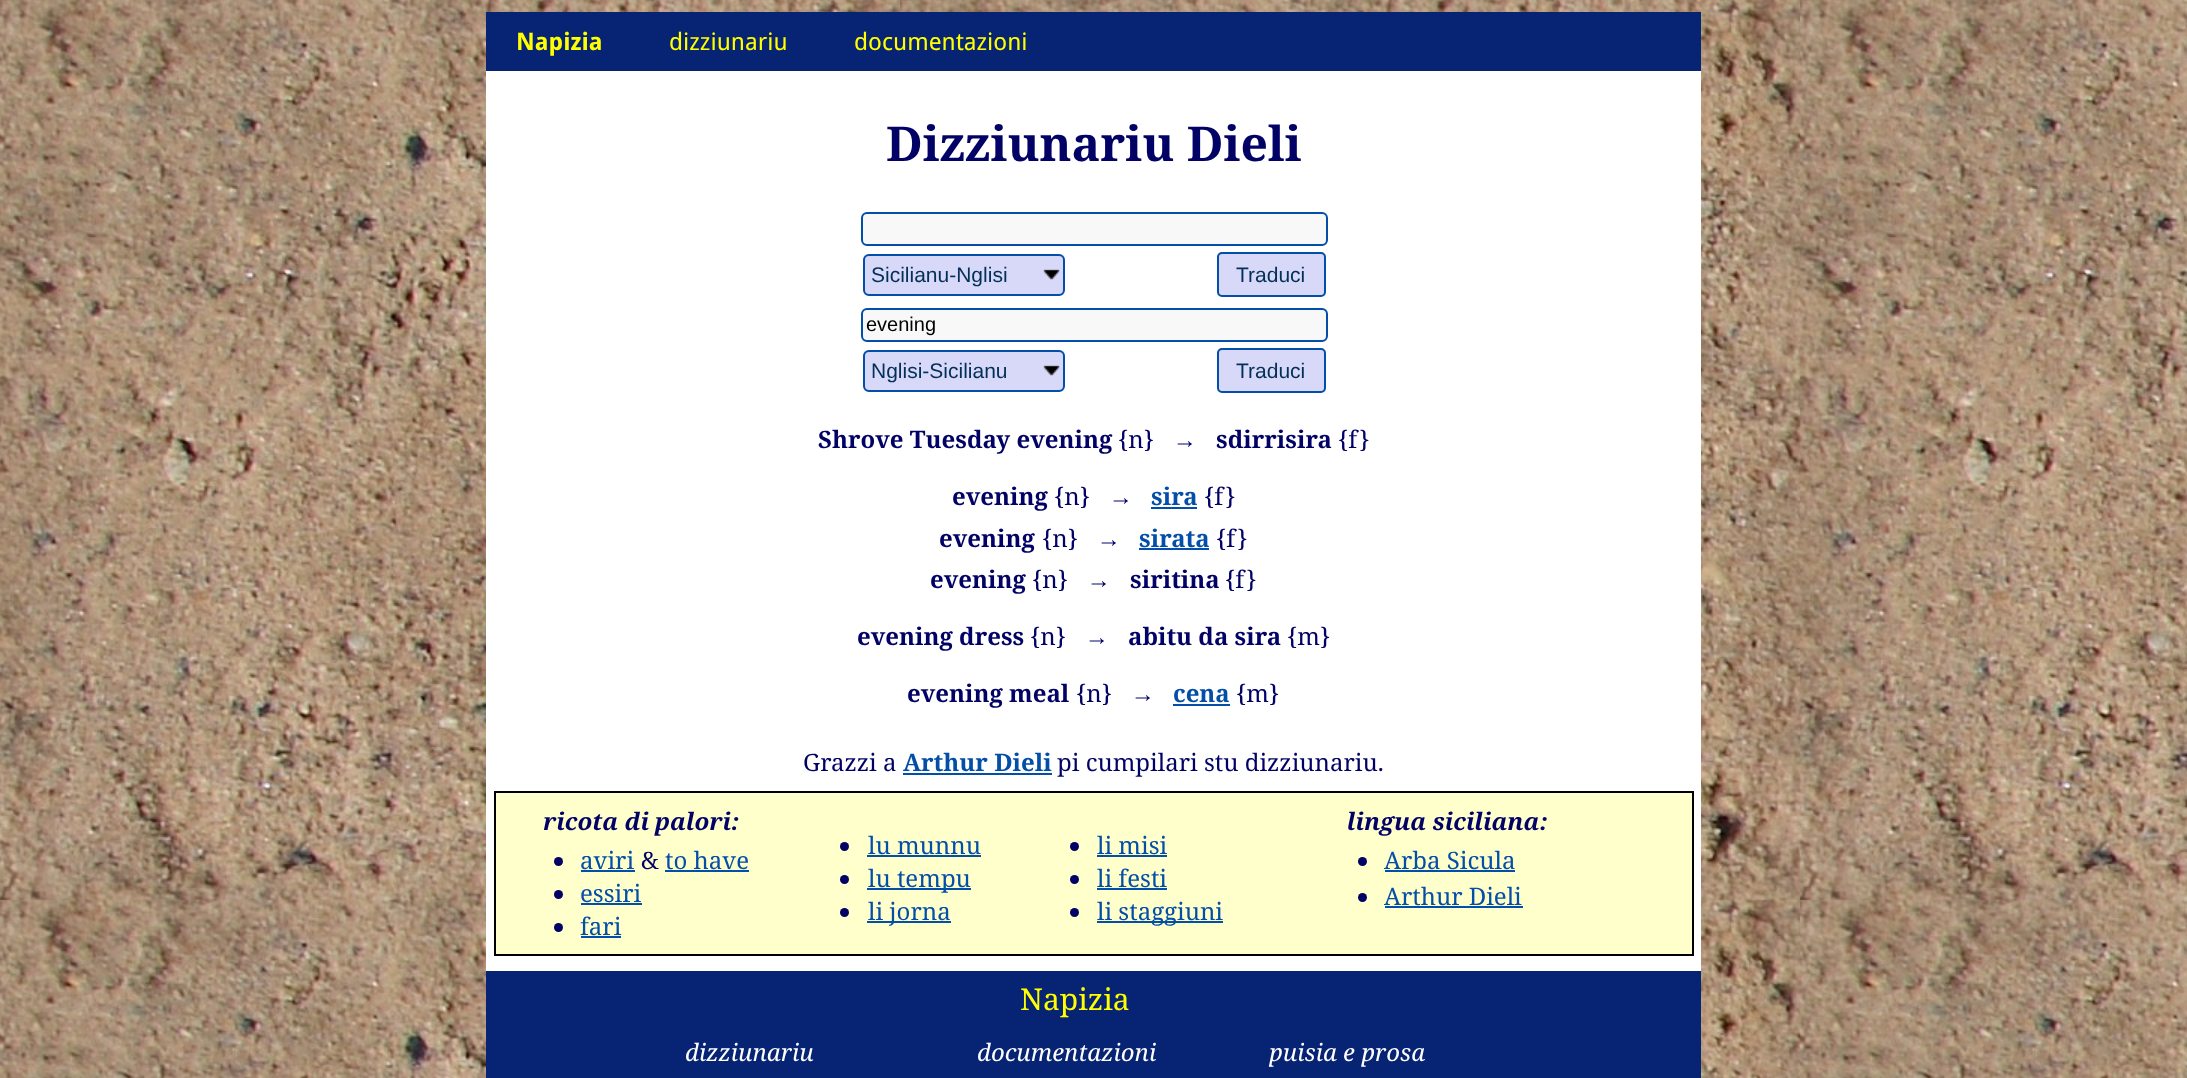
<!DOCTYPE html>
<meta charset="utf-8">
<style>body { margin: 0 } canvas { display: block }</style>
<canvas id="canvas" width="2187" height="1078"></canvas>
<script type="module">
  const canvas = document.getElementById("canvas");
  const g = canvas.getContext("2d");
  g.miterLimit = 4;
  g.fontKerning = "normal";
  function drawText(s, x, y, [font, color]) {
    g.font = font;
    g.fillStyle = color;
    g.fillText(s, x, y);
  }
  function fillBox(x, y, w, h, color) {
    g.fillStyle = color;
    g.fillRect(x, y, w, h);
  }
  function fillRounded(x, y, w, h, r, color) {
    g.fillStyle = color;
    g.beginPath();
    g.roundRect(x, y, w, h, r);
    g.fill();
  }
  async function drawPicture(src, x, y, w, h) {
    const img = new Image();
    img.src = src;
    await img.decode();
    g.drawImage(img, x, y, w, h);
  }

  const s1 = ["bold 24px Droid Sans", "#FFFF00"];
  const s2 = ["24px Droid Sans", "#FFFF00"];
  const s3 = ["bold 48px Droid Serif", "#020266"];
  const s4 = ["21px Liberation Sans", "#023058"];
  const s5 = ["20px Liberation Sans", "#000000"];
  const s6 = ["bold 24px Droid Serif", "#020266"];
  const s7 = ["24px Droid Serif", "#020266"];
  const s8 = ["bold 24px Droid Serif", "#024EA8"];
  const s9 = ["italic bold 24px Droid Serif", "#020266"];
  const s10 = ["24px Droid Serif", "#024EA8"];
  const s11 = ["30px Droid Serif", "#FFFF00"];
  const s12 = ["italic 24px Droid Serif", "#FFFFFF"];

  fillBox(0, 0, 2187, 1078, "#FFFFFF");
  await drawPicture("pic1.png", 0, 0, 2187, 1078);
  fillBox(486, 71, 1215, 900, "#FFFFFF");
  fillBox(486, 12, 1215, 59, "#072373");
  drawText("Napizia", 516, 50, s1);
  drawText("dizziunariu", 669, 50, s2);
  drawText("documentazioni", 854, 50, s2);
  drawText("Dizziunariu Dieli", 886, 161, s3);
  g.fillStyle = "#F8F8F8";
  g.beginPath();
  g.roundRect(862, 213, 465, 32, 5);
  g.fill();
  g.strokeStyle = "#024EA8";
  g.lineWidth = 2;
  g.stroke();
  fillRounded(863, 254, 202, 42, 6, "#D8D8F8");
  await drawPicture("pic2.png", 1043, 269, 17, 11);
  g.beginPath();
  g.roundRect(864, 255, 200, 40, 5);
  g.stroke();
  drawText("Sicilianu-Nglisi", 871, 282, s4);
  g.fillStyle = "#D8D8F8";
  g.beginPath();
  g.roundRect(1218, 253, 107, 43, 4);
  g.fill();
  g.stroke();
  drawText("Traduci", 1236, 282, s4);
  g.fillStyle = "#F8F8F8";
  g.beginPath();
  g.roundRect(862, 309, 465, 32, 5);
  g.fill();
  g.stroke();
  drawText("evening", 866, 331, s5);
  fillRounded(863, 350, 202, 42, 6, "#D8D8F8");
  await drawPicture("pic2.png", 1043, 365, 17, 11);
  g.beginPath();
  g.roundRect(864, 351, 200, 40, 5);
  g.stroke();
  drawText("Nglisi-Sicilianu", 871, 378, s4);
  g.fillStyle = "#D8D8F8";
  g.beginPath();
  g.roundRect(1218, 349, 107, 43, 4);
  g.fill();
  g.stroke();
  drawText("Traduci", 1236, 378, s4);
  drawText("Shrove Tuesday evening", 818, 448, s6);
  drawText("{n}   →", 1118, 448, s7);
  drawText("sdirrisira", 1216, 448, s6);
  drawText("{f}", 1338, 448, s7);
  drawText("evening", 952, 505, s6);
  drawText("{n}   →", 1054, 505, s7);
  drawText("sira", 1151, 505, s8);
  fillBox(1151, 507, 46, 2, "#024EA8");
  drawText("{f}", 1204, 505, s7);
  drawText("evening", 939, 547, s6);
  drawText("{n}   →", 1042, 547, s7);
  drawText("sirata", 1139, 547, s8);
  fillBox(1139, 548, 70, 2, "#024EA8");
  drawText("{f}", 1216, 547, s7);
  drawText("evening", 930, 588, s6);
  drawText("{n}   →", 1032, 588, s7);
  drawText("siritina", 1130, 588, s6);
  drawText("{f}", 1225, 588, s7);
  drawText("evening dress", 857, 645, s6);
  drawText("{n}   →", 1030, 645, s7);
  drawText("abitu da sira", 1128, 645, s6);
  drawText("{m}", 1287, 645, s7);
  drawText("evening meal", 907, 702, s6);
  drawText("{n}   →", 1076, 702, s7);
  drawText("cena", 1173, 702, s8);
  fillBox(1173, 704, 57, 2, "#024EA8");
  drawText("{m}", 1236, 702, s7);
  drawText("Grazzi a", 803, 771, s7);
  drawText("Arthur Dieli", 903, 771, s8);
  fillBox(903, 773, 149, 2, "#024EA8");
  drawText("pi cumpilari stu dizziunariu.", 1057, 771, s7);
  g.fillStyle = "#FFFFCC";
  g.beginPath();
  g.rect(495, 792, 1198, 163);
  g.fill();
  g.strokeStyle = "#000000";
  g.stroke();
  drawText("ricota di palori:", 543, 830, s9);
  g.beginPath();
  g.arc(558.5, 861.5, 4.5, 0, Math.PI * 2);
  g.fill();
  drawText("aviri", 580, 869, s10);
  fillBox(581, 870, 54, 2, "#024EA8");
  drawText("&", 641, 869, s7);
  drawText("to have", 665, 869, s10);
  fillBox(665, 870, 84, 2, "#024EA8");
  g.fillStyle = "#020266";
  g.beginPath();
  g.arc(558.5, 894.5, 4.5, 0, Math.PI * 2);
  g.fill();
  drawText("essiri", 580, 902, s10);
  fillBox(581, 903, 61, 2, "#024EA8");
  g.fillStyle = "#020266";
  g.beginPath();
  g.arc(558.5, 927.5, 4.5, 0, Math.PI * 2);
  g.fill();
  drawText("fari", 580, 935, s10);
  fillBox(581, 936, 40, 2, "#024EA8");
  g.fillStyle = "#020266";
  g.beginPath();
  g.arc(844.5, 846.5, 4.5, 0, Math.PI * 2);
  g.fill();
  drawText("lu munnu", 868, 854, s10);
  fillBox(867, 855, 114, 2, "#024EA8");
  g.fillStyle = "#020266";
  g.beginPath();
  g.arc(844.5, 879.5, 4.5, 0, Math.PI * 2);
  g.fill();
  fillBox(867, 888, 104, 2, "#024EA8");
  drawText("lu tempu", 868, 887, s10);
  g.fillStyle = "#020266";
  g.beginPath();
  g.arc(844.5, 912.5, 4.5, 0, Math.PI * 2);
  g.fill();
  fillBox(867, 921, 84, 2, "#024EA8");
  drawText("li jorna", 868, 920, s10);
  g.fillStyle = "#020266";
  g.beginPath();
  g.arc(1074.5, 846.5, 4.5, 0, Math.PI * 2);
  g.fill();
  drawText("li misi", 1097, 854, s10);
  fillBox(1097, 855, 70, 2, "#024EA8");
  g.fillStyle = "#020266";
  g.beginPath();
  g.arc(1074.5, 879.5, 4.5, 0, Math.PI * 2);
  g.fill();
  drawText("li festi", 1097, 887, s10);
  fillBox(1097, 888, 70, 2, "#024EA8");
  g.fillStyle = "#020266";
  g.beginPath();
  g.arc(1074.5, 912.5, 4.5, 0, Math.PI * 2);
  g.fill();
  fillBox(1097, 921, 126, 2, "#024EA8");
  drawText("li staggiuni", 1097, 920, s10);
  drawText("lingua siciliana:", 1347, 830, s9);
  g.beginPath();
  g.arc(1362.5, 861.5, 4.5, 0, Math.PI * 2);
  g.fill();
  drawText("Arba Sicula", 1384, 869, s10);
  fillBox(1385, 870, 130, 2, "#024EA8");
  g.fillStyle = "#020266";
  g.beginPath();
  g.arc(1362.5, 897.5, 4.5, 0, Math.PI * 2);
  g.fill();
  drawText("Arthur Dieli", 1384, 905, s10);
  fillBox(1385, 906, 138, 2, "#024EA8");
  fillBox(486, 971, 1215, 107, "#072373");
  drawText("Napizia", 1020, 1010, s11);
  drawText("dizziunariu", 685, 1061, s12);
  drawText("documentazioni", 977, 1061, s12);
  drawText("puisia e prosa", 1269, 1061, s12);
</script>
